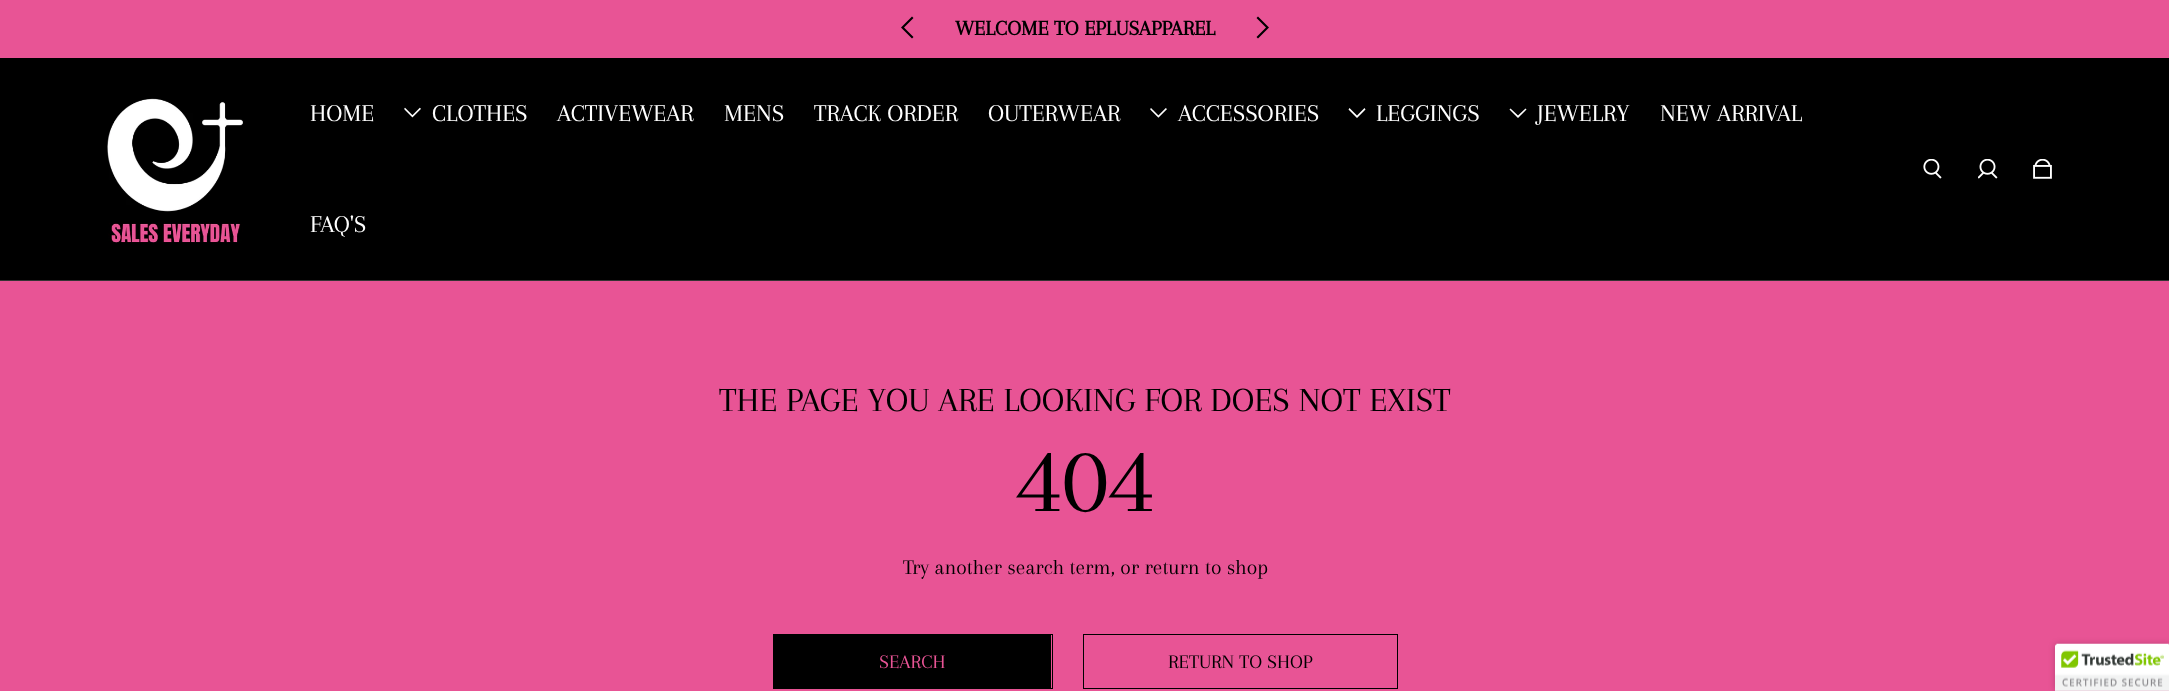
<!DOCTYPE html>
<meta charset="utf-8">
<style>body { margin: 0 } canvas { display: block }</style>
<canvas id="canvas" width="2169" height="691"></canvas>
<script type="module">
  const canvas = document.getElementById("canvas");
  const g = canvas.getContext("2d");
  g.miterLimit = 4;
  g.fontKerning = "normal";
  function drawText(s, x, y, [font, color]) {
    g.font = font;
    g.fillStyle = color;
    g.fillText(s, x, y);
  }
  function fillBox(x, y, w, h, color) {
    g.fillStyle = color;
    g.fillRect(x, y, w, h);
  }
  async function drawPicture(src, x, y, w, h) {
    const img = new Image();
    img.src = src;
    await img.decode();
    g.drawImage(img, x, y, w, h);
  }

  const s1 = ["bold 21.6px Arapey", "#000000"];
  const s2 = ["25px Arapey", "#FFFFFF"];
  const s3 = ["35px Arapey", "#000000"];
  const s4 = ["100px Arapey", "#000000"];
  const s5 = ["21.6px Arapey", "#000000"];
  const s6 = ["20px Arapey", "#E85495"];
  const s7 = ["20px Arapey", "#000000"];

  fillBox(0, 0, 2169, 691, "#E85495");
  g.fillStyle = "#000000";
  g.beginPath();
  g.moveTo(904, 27.5);
  g.lineTo(913.5, 18);
  g.lineTo(912, 16.5);
  g.lineTo(901, 27.5);
  g.lineTo(912, 38.5);
  g.lineTo(913.5, 37);
  g.closePath();
  g.fill("evenodd");
  drawText("WELCOME TO EPLUSAPPAREL", 955, 35, s1);
  g.beginPath();
  g.moveTo(1266, 27.5);
  g.lineTo(1256.5, 37);
  g.lineTo(1258, 38.5);
  g.lineTo(1269, 27.5);
  g.lineTo(1258, 16.5);
  g.lineTo(1256.5, 18);
  g.closePath();
  g.fill("evenodd");
  fillBox(0, 58, 2169, 222, "#000000");
  fillBox(0, 280, 2169, 1, "#333333");
  await drawPicture("pic1.png", 107, 98, 136, 145);
  drawText("HOME", 310, 121, s2);
  await drawPicture("pic2.png", 404, 107, 17, 11);
  drawText("CLOTHES", 432, 121, s2);
  drawText("ACTIVEWEAR", 557, 121, s2);
  drawText("MENS", 724, 121, s2);
  drawText("TRACK ORDER", 814, 121, s2);
  drawText("OUTERWEAR", 988, 121, s2);
  await drawPicture("pic3.png", 1150, 108, 17, 10);
  drawText("ACCESSORIES", 1178, 121, s2);
  g.beginPath();
  g.moveTo(1357, 115.5);
  g.lineTo(1349.5, 108);
  g.lineTo(1348.5, 109.5);
  g.lineTo(1357, 118);
  g.lineTo(1365.5, 109.5);
  g.lineTo(1364.5, 108);
  g.closePath();
  g.fill("evenodd");
  drawText("LEGGINGS", 1376, 121, s2);
  g.beginPath();
  g.moveTo(1518, 115.5);
  g.lineTo(1510.5, 108.5);
  g.lineTo(1509.5, 109.5);
  g.lineTo(1518, 118);
  g.lineTo(1526.5, 109.5);
  g.lineTo(1525.5, 108.5);
  g.closePath();
  g.fill("evenodd");
  drawText("JEWELRY", 1537, 121, s2);
  drawText("NEW ARRIVAL", 1660, 121, s2);
  drawText("FAQ'S", 310, 232, s2);
  await drawPicture("pic4.png", 1923, 159, 19, 20);
  await drawPicture("pic5.png", 1978, 159, 20, 20);
  await drawPicture("pic6.png", 2033, 159, 19, 20);
  drawText("THE PAGE YOU ARE LOOKING FOR DOES NOT EXIST", 719, 411, s3);
  drawText("404", 1016, 511, s4);
  drawText("Try another search term, or return to shop", 903, 574, s5);
  g.strokeStyle = "#000000";
  g.strokeRect(773.5, 634.5, 279, 54);
  fillBox(774, 635, 277, 53, "#000000");
  drawText("SEARCH", 879, 668, s6);
  g.strokeRect(1083.5, 634.5, 314, 54);
  drawText("RETURN TO SHOP", 1168, 668, s7);
  g.fillStyle = "rgba(0, 0, 0, 0.2)";
  g.filter = "blur(3px)";
  g.beginPath();
  g.roundRect(2055, 644, 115, 47, 2.5);
  g.fill();
  g.filter = "none";
  await drawPicture("pic7.png", 2055, 643, 114, 48);
</script>
